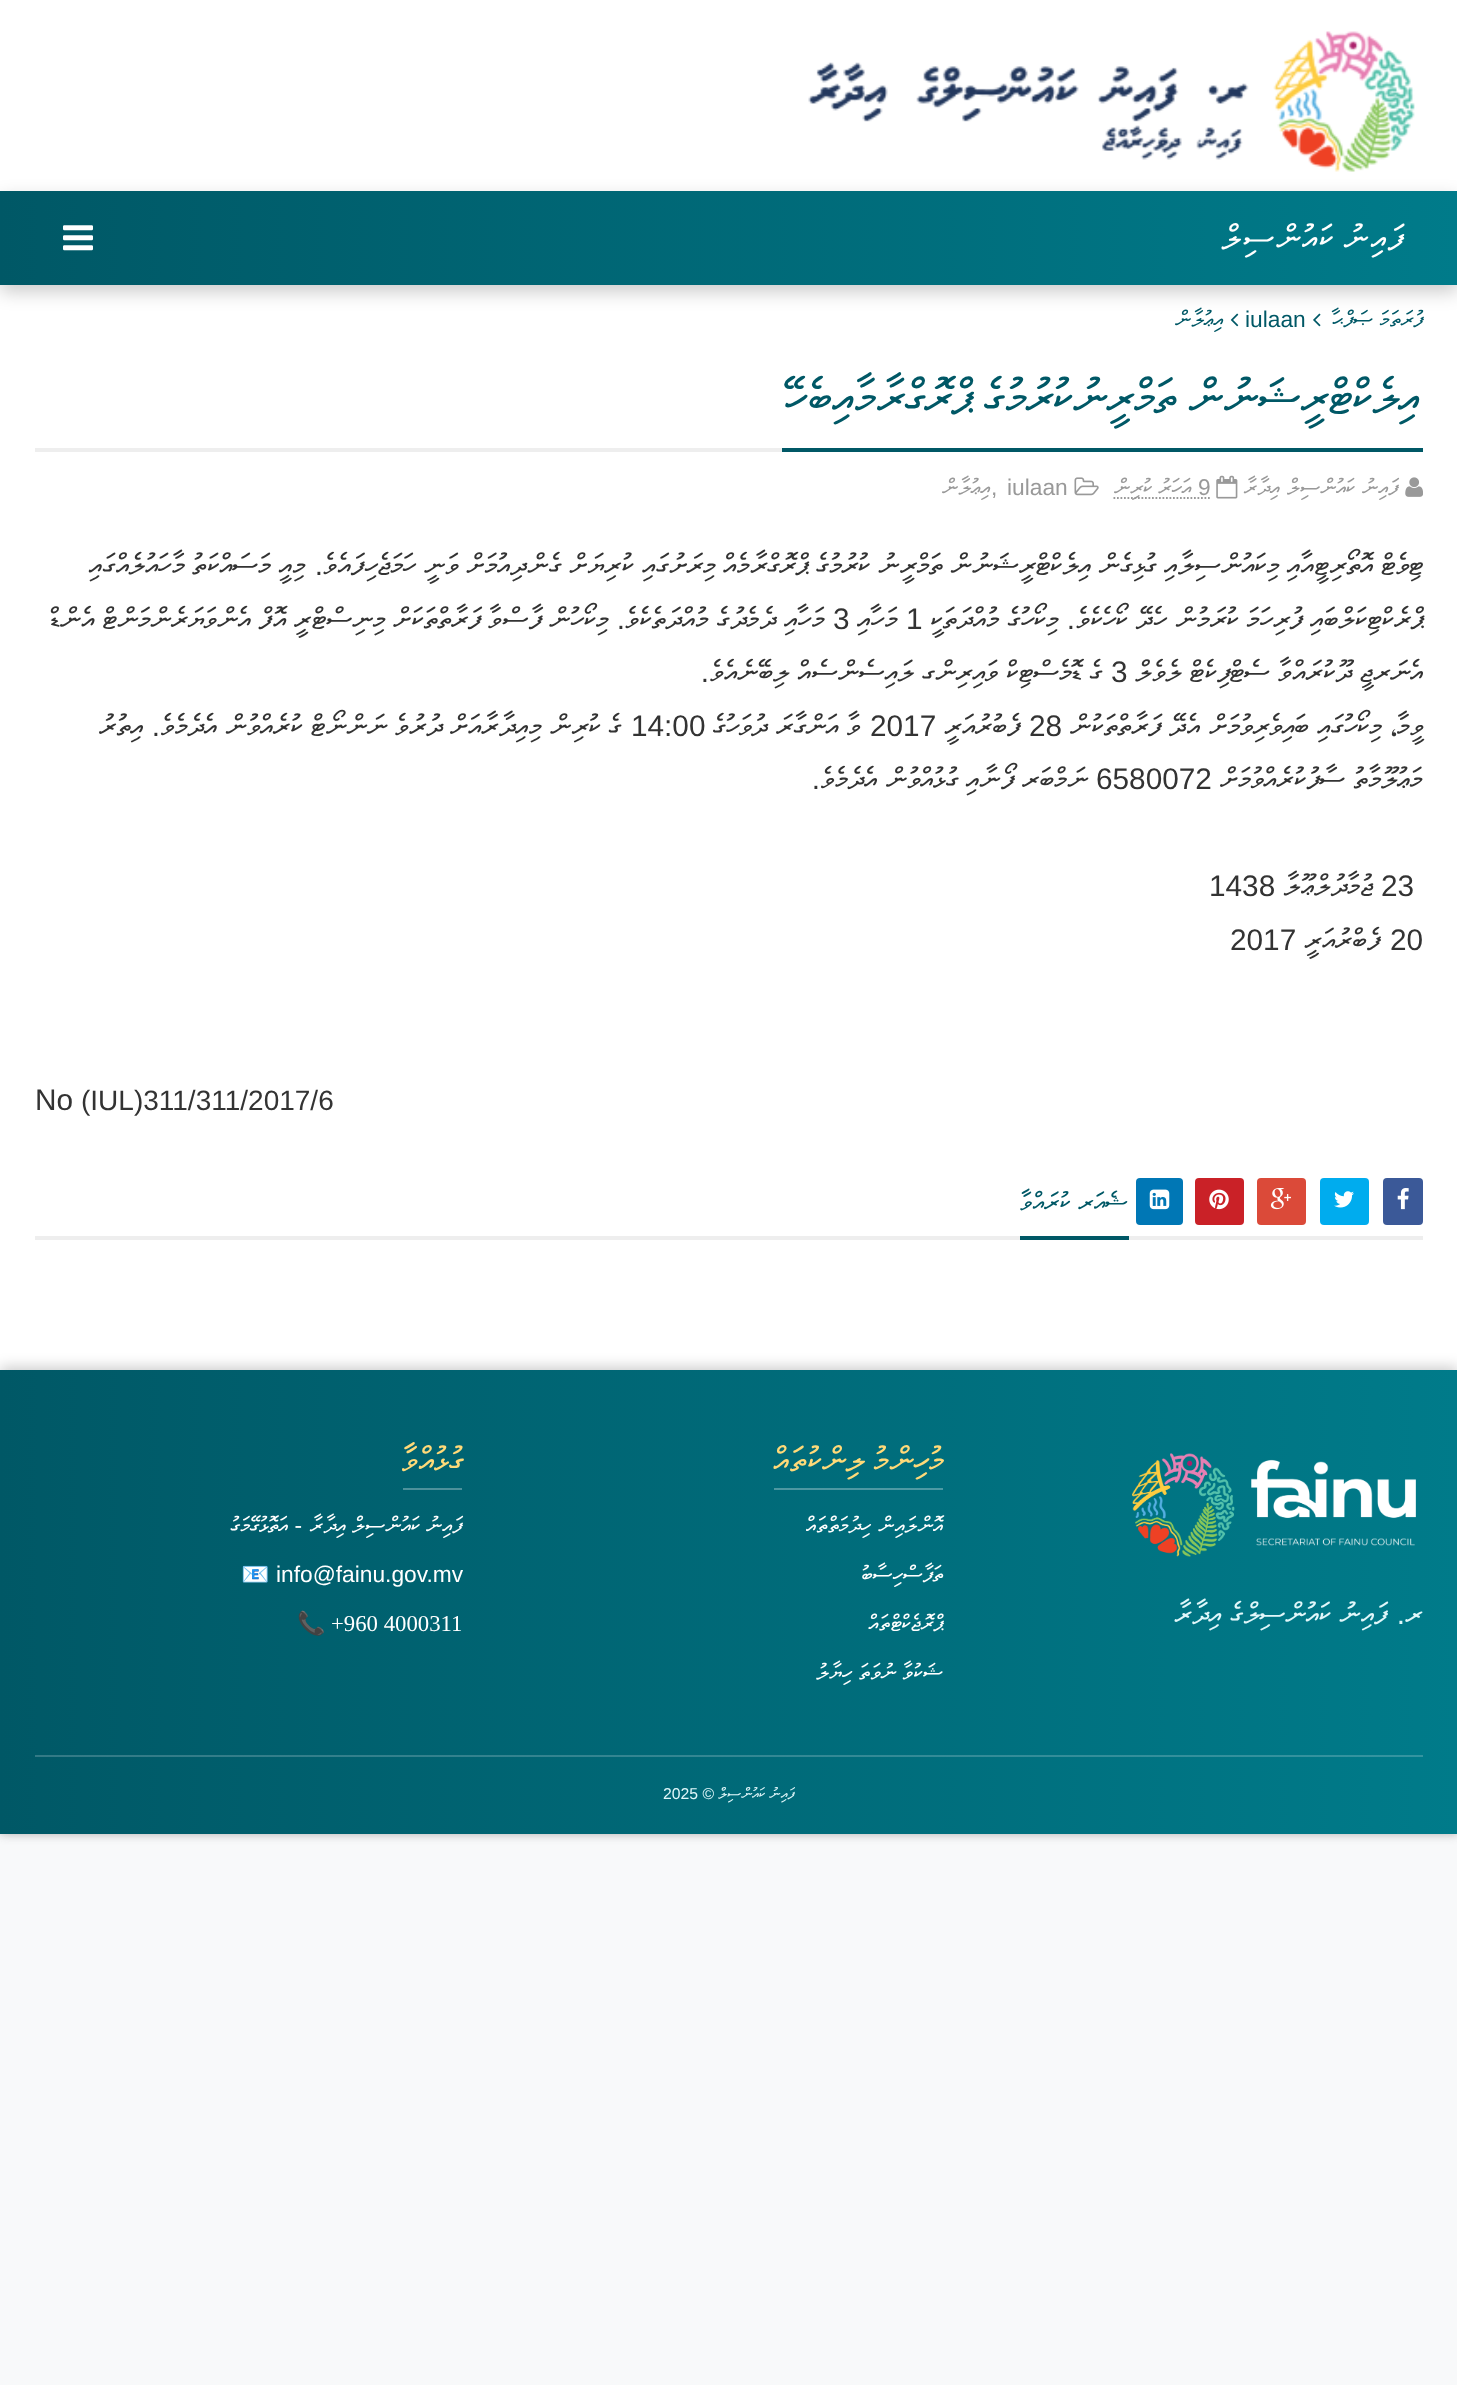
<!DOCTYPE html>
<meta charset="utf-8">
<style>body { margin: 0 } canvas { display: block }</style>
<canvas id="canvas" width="1457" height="2385"></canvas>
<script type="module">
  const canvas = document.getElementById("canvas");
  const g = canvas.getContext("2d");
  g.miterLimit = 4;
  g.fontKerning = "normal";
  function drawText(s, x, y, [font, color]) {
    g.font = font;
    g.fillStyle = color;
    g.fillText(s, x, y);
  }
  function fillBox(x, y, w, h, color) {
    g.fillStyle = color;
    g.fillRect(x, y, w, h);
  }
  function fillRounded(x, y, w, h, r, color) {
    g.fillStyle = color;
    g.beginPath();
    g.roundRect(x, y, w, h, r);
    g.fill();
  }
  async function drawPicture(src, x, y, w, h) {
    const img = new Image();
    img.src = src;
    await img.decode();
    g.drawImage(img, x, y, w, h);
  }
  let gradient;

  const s1 = ["35px FreeSerif", "#FFFFFF"];
  const s2 = ["22.75px FreeSerif", "#005866"];
  const s3 = ["22.75px Liberation Sans", "#005866"];
  const s4 = ["49px FreeSerif", "#005866"];
  const s5 = ["22.75px FreeSerif", "#999999"];
  const s6 = ["22.75px Liberation Sans", "#999999"];
  const s7 = ["29.75px FreeSerif", "#333333"];
  const s8 = ["29.75px Liberation Sans", "#333333"];
  const s9 = ["28px Liberation Sans", "#333333"];
  const s10 = ["26.25px FreeSerif", "#005866"];
  const s11 = ["29.75px FreeSerif", "#E0F7FA"];
  const s12 = ["29.75px Liberation Sans", "#E0F7FA"];
  const s13 = ["35px FreeSerif", "#FFDA79"];
  const s14 = ["22.75px FreeSerif", "#FFFFFF"];
  const s15 = ["22.75px Liberation Sans", "#FFFFFF"];
  const s16 = ["22.75px Noto Color Emoji", "#FFFFFF"];
  const s17 = ["22.75px Liberation Serif", "#FFFFFF"];
  const s18 = ["15.75px FreeSerif", "#E0F7FA"];
  const s19 = ["15.75px Liberation Sans", "#E0F7FA"];

  fillBox(0, 0, 1457, 2385, "#F8F9FA");
  g.fillStyle = "#CCCCCC";
  g.filter = "blur(4.5px)";
  g.beginPath();
  g.rect(0, 0, 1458, 1834);
  g.fill();
  g.filter = "none";
  fillBox(0, 0, 1457, 1370, "#FFFFFF");
  await drawPicture("pic1.png", 808, 31, 607, 141);
  await drawPicture("pic3.png", 1313, 313, 8, 14);
  await drawPicture("pic4.png", 1230, 313, 9, 14);
  g.fillStyle = "rgba(0, 0, 0, 0.2)";
  g.filter = "blur(9px)";
  g.beginPath();
  g.rect(0, 198, 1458, 94);
  g.fill();
  g.filter = "none";
  gradient = g.createLinearGradient(0, 238, 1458, 238);
  gradient.addColorStop(0, "#005866");
  gradient.addColorStop(1, "#007B8A");
  g.fillStyle = gradient;
  g.fillRect(0, 191, 1457, 94);
  g.letterSpacing = "1.75px";
  g.wordSpacing = "-2px";
  g.direction = "rtl";
  drawText("ފައިނު ކައުންސިލް", 1406, 250, s1);
  await drawPicture("pic2.png", 63, 225, 30, 26);
  g.letterSpacing = "0px";
  g.wordSpacing = "1px";
  drawText("ފުރަތަމަ ޞަފްޙާ", 1423, 327, s2);
  g.wordSpacing = "0px";
  g.direction = "ltr";
  drawText("iulaan", 1245, 327, s3);
  g.direction = "rtl";
  drawText("އިޢުލާން", 1224, 327, s2);
  fillBox(35, 448, 747, 4, "#EEEEEE");
  fillBox(782, 448, 641, 4, "#005866");
  drawText("އިލެކްޓްރީޝަނުން ތަމްރީނުކުރުމުގެ ޕްރޮގްރާމާއިބެހޭ", 1419, 414, s4);
  await drawPicture("pic5.png", 1405, 477, 18, 20);
  g.wordSpacing = "1px";
  drawText("ފައިނު ކައުންސިލް އިދާރާ", 1399, 495, s5);
  await drawPicture("pic6.png", 1216, 475, 22, 24);
  g.wordSpacing = "0px";
  g.direction = "ltr";
  drawText("9", 1198, 495, s6);
  g.beginPath();
  g.moveTo(1197.5, 498);
  g.lineTo(1210.5, 498);
  g.strokeStyle = "#999999";
  g.lineWidth = 1.8;
  g.setLineDash([1.75, 1.75]);
  g.stroke();
  g.beginPath();
  g.moveTo(1113.5, 498);
  g.lineTo(1197.5, 498);
  g.stroke();
  g.direction = "rtl";
  drawText("އަހަރު ކުރިން", 1191, 495, s5);
  await drawPicture("pic7.png", 1074, 477, 25, 19);
  g.direction = "ltr";
  drawText("iulaan", 1007, 495, s6);
  drawText(",", 991, 495, s6);
  g.direction = "rtl";
  drawText("އިޢުލާން", 991, 495, s5);
  g.wordSpacing = "0.75px";
  drawText("ޓިވެޓް އޮތޯރިޓީއާއި މިކައުންސިލާއި ގުޅިގެން އިލެކްޓްރީޝަނުން ތަމްރީނު ކުރުމުގެ ޕްރޮގްރާމެއް މިރަށުގައި ކުރިޔަށް ގެންދިއުމަށް ވަނީ ހަމަޖެހިފައެވެ", 1423, 575, s7);
  g.wordSpacing = "0px";
  drawText(".", 323, 575, s8);
  g.wordSpacing = "0.75px";
  drawText("މިއީ މަސައްކަތު މާހައުލެއްގައި", 306, 575, s7);
  g.wordSpacing = "0.5px";
  drawText("ޕްރެކްޓިކަލްބައި ފުރިހަމަ ކުރަމުން ހެދޭ ކޯހެކެވެ", 1423, 629, s7);
  g.wordSpacing = "0px";
  drawText(".", 1075, 629, s8);
  g.wordSpacing = "0.5px";
  drawText("މިކޯހުގެ މުއްދަތަކީ", 1058, 629, s7);
  g.wordSpacing = "0px";
  g.direction = "ltr";
  drawText("1", 906, 629, s8);
  g.direction = "rtl";
  drawText("މަހާއި", 897, 629, s7);
  g.direction = "ltr";
  drawText("3", 833, 629, s8);
  g.wordSpacing = "0.5px";
  g.direction = "rtl";
  drawText("މަހާއި ދެމެދުގެ މުއްދަތެކެވެ", 824, 629, s7);
  g.wordSpacing = "0px";
  drawText(".", 625, 629, s8);
  g.wordSpacing = "0.5px";
  drawText("މިކޯހުން ފާސްވާ ފަރާތްތަކަށް މިނިސްޓްރީ އޮފް އެންވަޔަރެންމަންޓް އެންޑް", 608, 629, s7);
  g.wordSpacing = "1px";
  drawText("އެނަރޖީ ދޫކުރައްވާ ސެޓްފިކެޓް ލެވެލް", 1423, 682, s7);
  g.wordSpacing = "0px";
  g.direction = "ltr";
  drawText("3", 1111, 682, s8);
  g.wordSpacing = "0.5px";
  g.direction = "rtl";
  drawText("ގެ ޑޮމެސްޓިކް ވައިރިންގ ލައިސެންސެއް ލިބޭނެއެވެ", 1103, 682, s7);
  g.wordSpacing = "0px";
  drawText(".", 709, 682, s8);
  g.wordSpacing = "1px";
  drawText("ވީމާ، މިކޯހުގައި ބައިވެރިވުމަށް އެދޭ ފަރާތްތަކުން", 1423, 736, s7);
  g.wordSpacing = "0px";
  g.direction = "ltr";
  drawText("28", 1029, 736, s8);
  g.direction = "rtl";
  drawText("ފެބުރުއަރީ", 1021, 736, s7);
  g.direction = "ltr";
  drawText("2017", 870, 736, s8);
  g.wordSpacing = "1px";
  g.direction = "rtl";
  drawText("ވާ އަންގާރަ ދުވަހުގެ", 861, 736, s7);
  g.wordSpacing = "0px";
  g.direction = "ltr";
  drawText("14:00", 631, 736, s8);
  g.wordSpacing = "0.5px";
  g.direction = "rtl";
  drawText("ގެ ކުރިން މިއިދާރާއަށް ދުރުވެ ނަންނޯޓް ކުރެއްވުން އެދެމެވެ", 622, 736, s7);
  g.wordSpacing = "0px";
  drawText(".", 160, 736, s8);
  drawText("އިތުރު", 143, 736, s7);
  g.wordSpacing = "1px";
  drawText("މަޢުލޫމާތު ސާފުކުރެއްވުމަށް", 1423, 789, s7);
  g.wordSpacing = "0px";
  g.direction = "ltr";
  drawText("6580072", 1096, 789, s8);
  g.wordSpacing = "0.5px";
  g.direction = "rtl";
  drawText("ނަމްބަރ ފޯނާއި ގުޅުއްވުން އެދެމެވެ", 1088, 789, s7);
  g.wordSpacing = "0px";
  drawText(".", 820, 789, s8);
  g.direction = "ltr";
  drawText("23", 1381, 896, s8);
  g.direction = "rtl";
  drawText("ޖުމާދުލްޢޫލާ", 1373, 896, s7);
  g.direction = "ltr";
  drawText("1438", 1209, 896, s8);
  drawText("20", 1390, 950, s8);
  g.direction = "rtl";
  drawText("ފެބްރުއަރީ", 1381, 950, s7);
  g.direction = "ltr";
  drawText("2017", 1230, 950, s8);
  drawText("(IUL)311/311/2017/6", 81, 1110, s9);
  drawText("No", 35, 1110, s8);
  fillBox(35, 1236, 1388, 4, "#EEEEEE");
  fillRounded(1383, 1178, 40, 47, 4, "#3B5998");
  await drawPicture("pic8.png", 1397, 1188, 12, 22);
  fillRounded(1320, 1178, 49, 47, 4, "#00ACEE");
  await drawPicture("pic9.png", 1334, 1191, 20, 17);
  fillRounded(1257, 1178, 49, 47, 4, "#DB4A39");
  await drawPicture("pic10.png", 1270, 1188, 21, 22);
  fillRounded(1195, 1178, 49, 47, 4, "#CA2127");
  await drawPicture("pic11.png", 1209, 1189, 20, 21);
  fillRounded(1136, 1178, 47, 47, 4, "#0077B5");
  await drawPicture("pic12.png", 1149, 1189, 21, 21);
  fillBox(1020, 1236, 109, 4, "#005866");
  g.wordSpacing = "1px";
  g.direction = "rtl";
  drawText("ޝެއަރ ކުރައްވާ", 1128, 1211, s10);
  g.fillStyle = "rgba(0, 0, 0, 0.2)";
  g.filter = "blur(7px)";
  g.beginPath();
  g.rect(0, 1367, 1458, 464);
  g.fill();
  g.filter = "none";
  gradient = g.createLinearGradient(0, 1602, 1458, 1602);
  gradient.addColorStop(0, "#005866");
  gradient.addColorStop(1, "#007B8A");
  g.fillStyle = gradient;
  g.fillRect(0, 1370, 1457, 464);
  gradient = g.createLinearGradient(0, 1602, 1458, 1602);
  gradient.addColorStop(0, "#4D8A94");
  gradient.addColorStop(1, "#4DA3AD");
  g.fillStyle = gradient;
  g.fillRect(774, 1488, 169, 2);
  gradient = g.createLinearGradient(0, 1602, 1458, 1602);
  gradient.addColorStop(0, "#337985");
  gradient.addColorStop(1, "#3395A1");
  g.fillStyle = gradient;
  g.fillRect(35, 1755, 1388, 2);
  await drawPicture("pic13.png", 1132, 1453, 284, 104);
  g.wordSpacing = "0px";
  drawText("ރ", 1423, 1624, s11);
  drawText(".", 1405, 1624, s12);
  g.wordSpacing = "1px";
  drawText("ފައިނު ކައުންސިލްގެ އިދާރާ", 1388, 1624, s11);
  drawText("މުހިންމު ލިންކުތައް", 943, 1472, s13);
  drawText("އޮންލައިން ހިދުމަތްތައް", 943, 1533, s14);
  g.wordSpacing = "0px";
  drawText("ތަފާސްހިސާބު", 943, 1582, s14);
  drawText("ޕްރޮޖެކްޓްތައް", 943, 1631, s14);
  g.wordSpacing = "1px";
  drawText("ޝަކުވާ ނުވަތަ ހިޔާލު", 943, 1680, s14);
  fillBox(403, 1488, 59, 2, "#4D919B");
  g.wordSpacing = "0px";
  drawText("ގުޅުއްވާ", 463, 1472, s13);
  drawText("ފައިނު ކައުންސިލް އިދާރާ", 463, 1533, s14);
  drawText("-", 302, 1533, s15);
  drawText("އަތޮޅުގޭމަގު", 288, 1533, s14);
  g.direction = "ltr";
  drawText("info@fainu.gov.mv", 276, 1582, s15);
  drawText("📧", 241, 1582, s16);
  drawText("+960 4000311", 331, 1631, s17);
  drawText("📞", 297, 1631, s16);
  g.direction = "rtl";
  drawText("ފައިނު ކައުންސިލް", 795, 1799, s18);
  drawText("©", 714, 1799, s19);
  g.direction = "ltr";
  drawText("2025", 663, 1799, s19);
</script>
